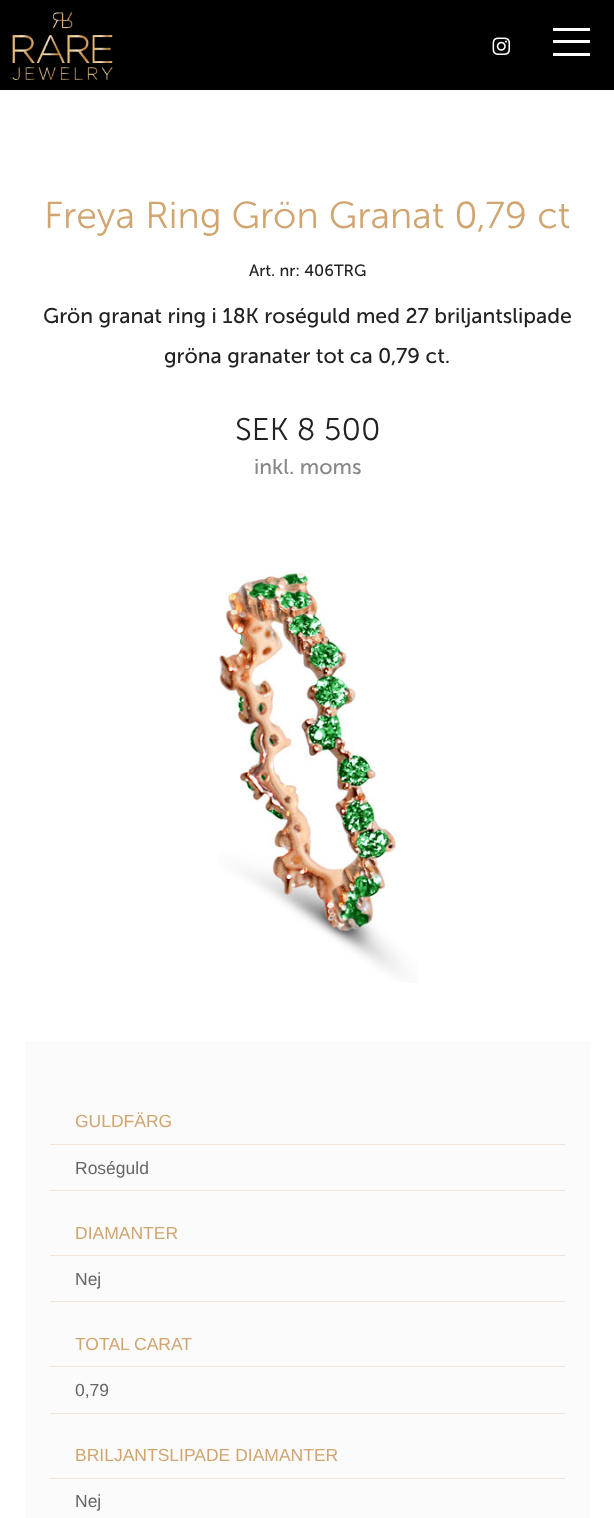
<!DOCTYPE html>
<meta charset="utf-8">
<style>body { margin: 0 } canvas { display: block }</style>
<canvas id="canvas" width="614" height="1518"></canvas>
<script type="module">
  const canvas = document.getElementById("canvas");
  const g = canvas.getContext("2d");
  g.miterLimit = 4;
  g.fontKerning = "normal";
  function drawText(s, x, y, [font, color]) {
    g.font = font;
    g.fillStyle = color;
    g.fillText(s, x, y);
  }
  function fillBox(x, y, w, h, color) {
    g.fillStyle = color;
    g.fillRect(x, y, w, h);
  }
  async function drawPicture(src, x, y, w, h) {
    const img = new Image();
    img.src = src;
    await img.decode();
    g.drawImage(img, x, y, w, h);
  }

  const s1 = ["300 37.5px 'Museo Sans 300'", "#D1A570"];
  const s2 = ["16.25px 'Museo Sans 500'", "#222222"];
  const s3 = ["21.25px 'Museo Sans 500'", "#222222"];
  const s4 = ["300 31.25px 'Museo Sans 300'", "#222222"];
  const s5 = ["21.25px 'Museo Sans 500'", "#888888"];
  const s6 = ["17.5px Liberation Sans", "#D1A570"];
  const s7 = ["17.5px Liberation Sans", "#666666"];

  fillBox(0, 0, 614, 1518, "#FFFFFF");
  fillBox(0, 0, 614, 90, "#000000");
  await drawPicture("pic1.png", 12, 12, 101, 68);
  await drawPicture("pic2.png", 492, 37, 19, 18);
  fillBox(553, 28, 37, 3, "#FFFFFF");
  fillBox(553, 40, 37, 3, "#FFFFFF");
  fillBox(553, 53, 37, 3, "#FFFFFF");
  drawText("Freya Ring Grön Granat 0,79 ct", 44, 228, s1);
  drawText("Art. nr: 406TRG", 249, 276, s2);
  drawText("Grön granat ring i 18K roséguld med 27 briljantslipade", 43, 323, s3);
  drawText("gröna granater tot ca 0,79 ct.", 164, 363, s3);
  drawText("SEK 8 500", 235, 440, s4);
  drawText("inkl. moms", 254, 474, s5);
  await drawPicture("pic3.png", 219, 570, 199, 413);
  fillBox(25, 1041, 565, 477, "#FBFBFB");
  fillBox(50, 1144, 515, 1, "#EFE5D9");
  drawText("GULDFÄRG", 75, 1127, s6);
  fillBox(50, 1190, 515, 1, "#EFE5D9");
  drawText("Roséguld", 75, 1174, s7);
  fillBox(50, 1255, 515, 1, "#EFE5D9");
  drawText("DIAMANTER", 75, 1239, s6);
  fillBox(50, 1301, 515, 1, "#EFE5D9");
  drawText("Nej", 75, 1285, s7);
  fillBox(50, 1366, 515, 1, "#EFE5D9");
  drawText("TOTAL CARAT", 75, 1350, s6);
  fillBox(50, 1413, 515, 1, "#EFE5D9");
  drawText("0,79", 75, 1396, s7);
  fillBox(50, 1478, 515, 1, "#EFE5D9");
  drawText("BRILJANTSLIPADE DIAMANTER", 75, 1461, s6);
  drawText("Nej", 75, 1507, s7);
</script>
